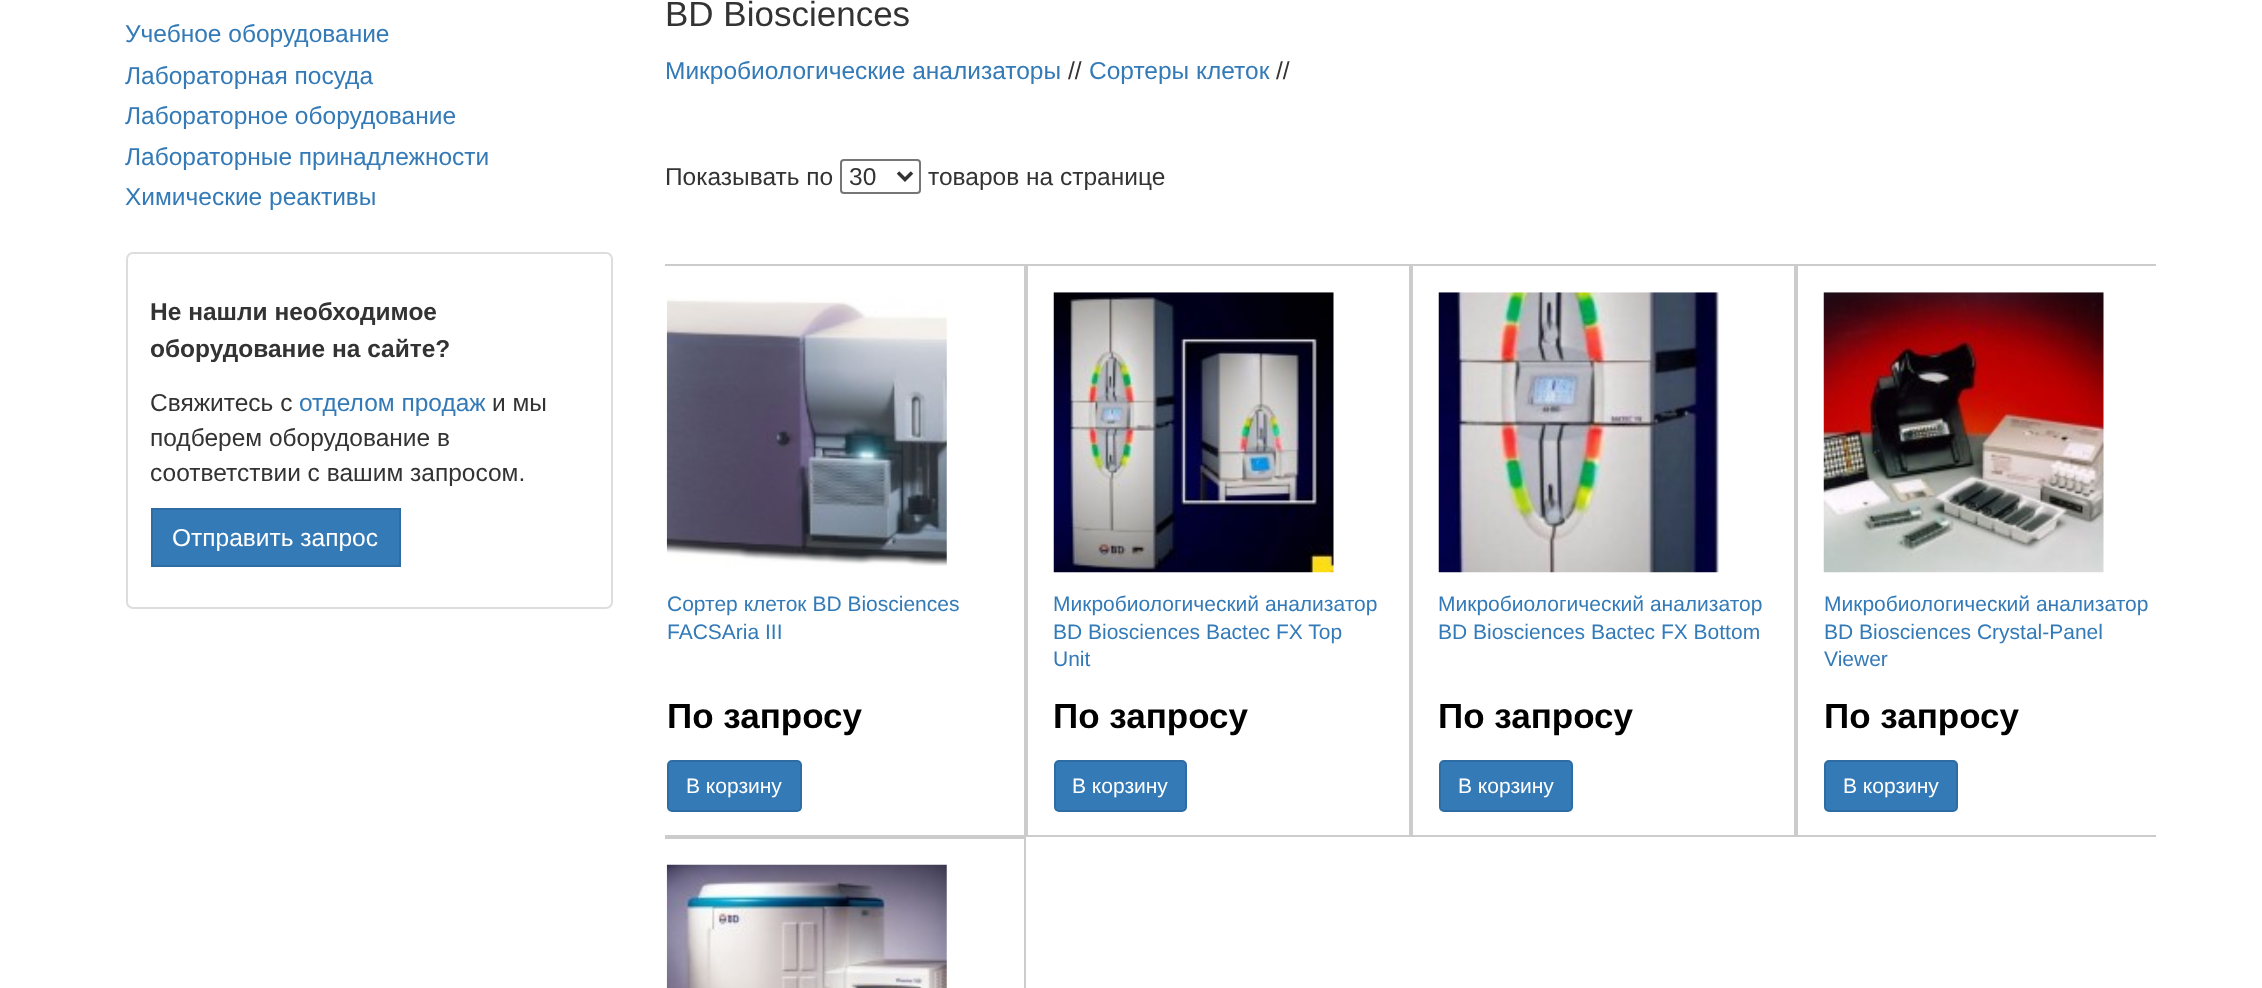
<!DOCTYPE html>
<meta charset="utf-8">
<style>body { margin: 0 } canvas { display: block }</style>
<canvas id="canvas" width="2262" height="988"></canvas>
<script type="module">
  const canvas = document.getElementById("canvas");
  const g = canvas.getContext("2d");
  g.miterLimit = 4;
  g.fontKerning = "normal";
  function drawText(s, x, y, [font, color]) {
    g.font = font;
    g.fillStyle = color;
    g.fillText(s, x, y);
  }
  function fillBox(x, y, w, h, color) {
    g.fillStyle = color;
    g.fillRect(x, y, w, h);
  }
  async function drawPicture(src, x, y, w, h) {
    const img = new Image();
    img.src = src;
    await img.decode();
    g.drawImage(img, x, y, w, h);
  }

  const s1 = ["24.5px Liberation Sans", "#337AB7"];
  const s2 = ["bold 24.5px Liberation Sans", "#333333"];
  const s3 = ["24.5px Liberation Sans", "#333333"];
  const s4 = ["24.5px Liberation Sans", "#FFFFFF"];
  const s5 = ["35px Liberation Sans", "#333333"];
  const s6 = ["21px Liberation Sans", "#337AB7"];
  const s7 = ["bold 35px Liberation Sans", "#000000"];
  const s8 = ["21px Liberation Sans", "#FFFFFF"];

  fillBox(0, 0, 2262, 988, "#FFFFFF");
  drawText("Учебное оборудование", 125, 42, s1);
  drawText("Лабораторная посуда", 125, 84, s1);
  drawText("Лабораторное оборудование", 125, 124, s1);
  drawText("Лабораторные принадлежности", 125, 165, s1);
  drawText("Химические реактивы", 125, 205, s1);
  g.beginPath();
  g.roundRect(127, 253, 485, 355, 6);
  g.strokeStyle = "#DDDDDD";
  g.lineWidth = 2;
  g.stroke();
  drawText("Не нашли необходимое", 150, 320, s2);
  drawText("оборудование на сайте?", 150, 357, s2);
  drawText("Свяжитесь с", 150, 411, s3);
  drawText("отделом продаж", 299, 411, s1);
  drawText("и мы", 492, 411, s3);
  drawText("подберем оборудование в", 150, 446, s3);
  drawText("соответствии с вашим запросом.", 150, 481, s3);
  g.fillStyle = "#337AB7";
  g.beginPath();
  g.rect(152, 509, 248, 57);
  g.fill();
  g.strokeStyle = "#2E6DA4";
  g.stroke();
  drawText("Отправить запрос", 172, 546, s4);
  drawText("BD Biosciences", 665, 26, s5);
  drawText("Микробиологические анализаторы", 665, 79, s1);
  drawText("//", 1068, 79, s3);
  drawText("Сортеры клеток", 1089, 79, s1);
  drawText("//", 1276, 79, s3);
  drawText("Показывать по", 665, 185, s3);
  g.beginPath();
  g.roundRect(841, 160, 79, 33, 3);
  g.strokeStyle = "#767676";
  g.stroke();
  g.beginPath();
  g.moveTo(898, 172.5);
  g.lineTo(905, 179.5);
  g.lineTo(912, 172.5);
  g.strokeStyle = "#333333";
  g.lineWidth = 3.5;
  g.stroke();
  drawText("30", 849, 185, s3);
  drawText("товаров на странице", 928, 185, s3);
  g.save();
  g.beginPath();
  g.rect(665, 0, 1491, 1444);
  g.clip();
  g.strokeStyle = "#CCCCCC";
  g.lineWidth = 2;
  g.strokeRect(640, 265, 385, 571);
  g.restore();
  await drawPicture("pic1.png", 666, 298, 281, 268);
  drawText("Сортер клеток BD Biosciences", 667, 611, s6);
  drawText("FACSAria III", 667, 639, s6);
  drawText("По запросу", 667, 728, s7);
  g.fillStyle = "#337AB7";
  g.beginPath();
  g.roundRect(668, 761, 133, 50, 4);
  g.fill();
  g.strokeStyle = "#2E6DA4";
  g.lineWidth = 2;
  g.stroke();
  drawText("В корзину", 686, 793, s8);
  g.strokeStyle = "#CCCCCC";
  g.strokeRect(1027, 265, 383, 571);
  await drawPicture("pic2.png", 1053, 292, 281, 281);
  drawText("Микробиологический анализатор", 1053, 611, s6);
  drawText("BD Biosciences Bactec FX Top", 1053, 639, s6);
  drawText("Unit", 1053, 666, s6);
  drawText("По запросу", 1053, 728, s7);
  g.fillStyle = "#337AB7";
  g.beginPath();
  g.roundRect(1055, 761, 131, 50, 4);
  g.fill();
  g.strokeStyle = "#2E6DA4";
  g.stroke();
  drawText("В корзину", 1072, 793, s8);
  g.strokeStyle = "#CCCCCC";
  g.strokeRect(1412, 265, 383, 571);
  await drawPicture("pic3.png", 1438, 292, 281, 281);
  drawText("Микробиологический анализатор", 1438, 611, s6);
  drawText("BD Biosciences Bactec FX Bottom", 1438, 639, s6);
  drawText("По запросу", 1438, 728, s7);
  g.fillStyle = "#337AB7";
  g.beginPath();
  g.roundRect(1440, 761, 132, 50, 4);
  g.fill();
  g.strokeStyle = "#2E6DA4";
  g.stroke();
  drawText("В корзину", 1458, 793, s8);
  g.save();
  g.beginPath();
  g.rect(665, 0, 1491, 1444);
  g.clip();
  g.strokeStyle = "#CCCCCC";
  g.strokeRect(1797, 265, 384, 571);
  g.restore();
  await drawPicture("pic4.png", 1823, 292, 281, 281);
  drawText("Микробиологический анализатор", 1824, 611, s6);
  drawText("BD Biosciences Crystal-Panel", 1824, 639, s6);
  drawText("Viewer", 1824, 666, s6);
  drawText("По запросу", 1824, 728, s7);
  g.fillStyle = "#337AB7";
  g.beginPath();
  g.roundRect(1825, 761, 132, 50, 4);
  g.fill();
  g.stroke();
  drawText("В корзину", 1843, 793, s8);
  g.save();
  g.beginPath();
  g.rect(665, 0, 1491, 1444);
  g.clip();
  g.strokeStyle = "#CCCCCC";
  g.strokeRect(640, 838, 385, 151);
  g.restore();
  await drawPicture("pic5.png", 666, 864, 281, 124);
</script>
